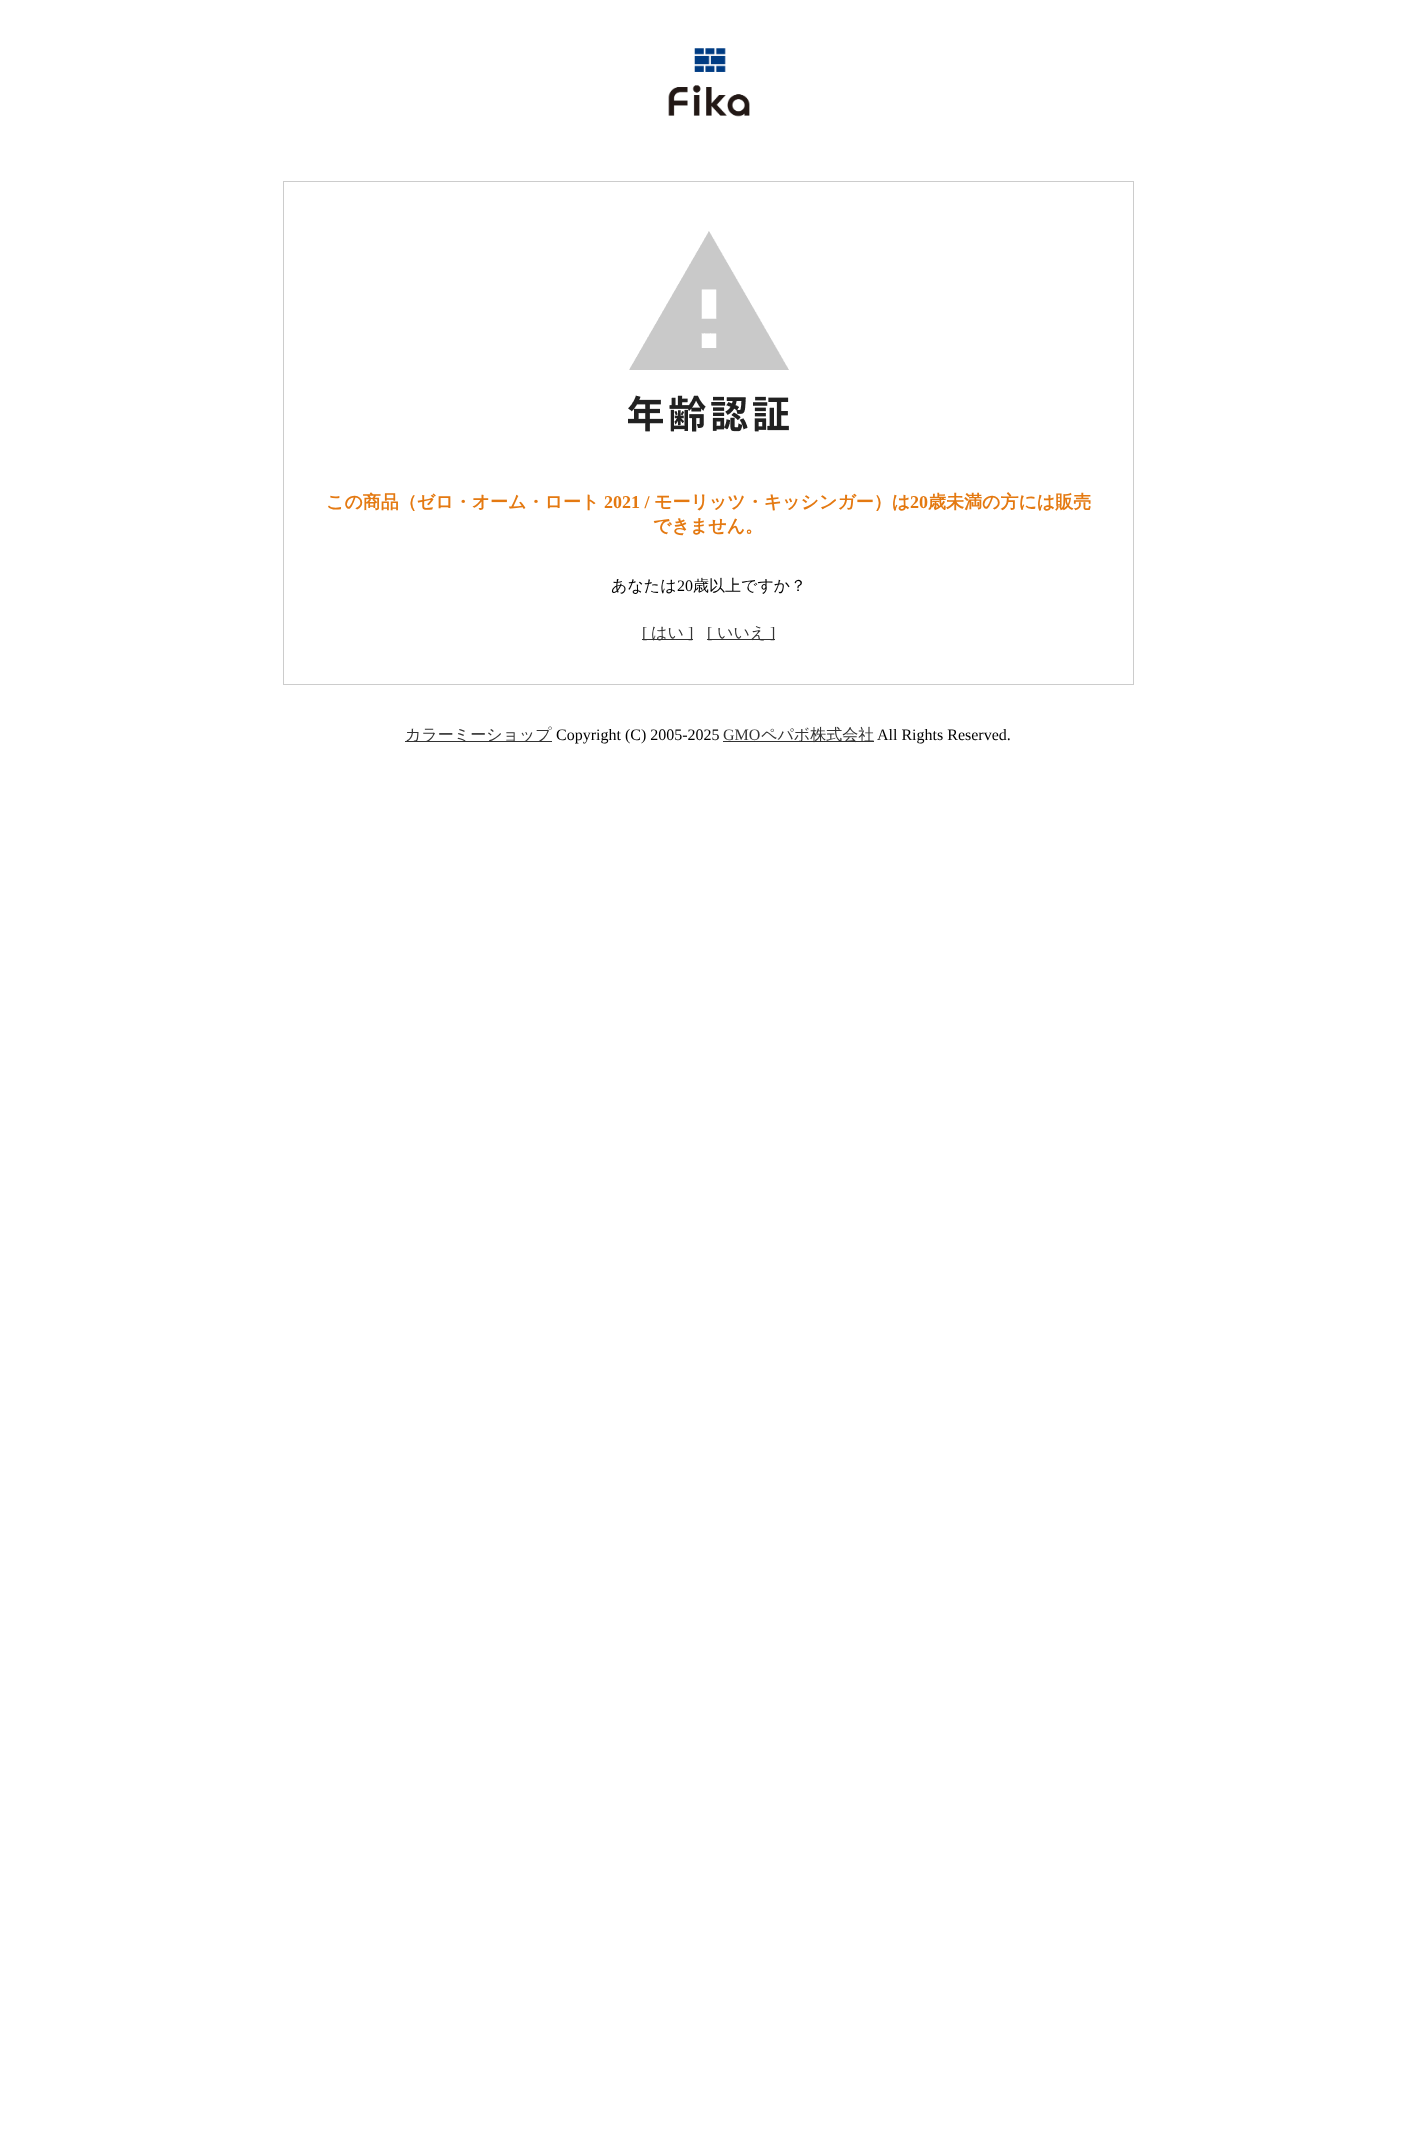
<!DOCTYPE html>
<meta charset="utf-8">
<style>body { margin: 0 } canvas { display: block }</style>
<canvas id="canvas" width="1417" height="2148"></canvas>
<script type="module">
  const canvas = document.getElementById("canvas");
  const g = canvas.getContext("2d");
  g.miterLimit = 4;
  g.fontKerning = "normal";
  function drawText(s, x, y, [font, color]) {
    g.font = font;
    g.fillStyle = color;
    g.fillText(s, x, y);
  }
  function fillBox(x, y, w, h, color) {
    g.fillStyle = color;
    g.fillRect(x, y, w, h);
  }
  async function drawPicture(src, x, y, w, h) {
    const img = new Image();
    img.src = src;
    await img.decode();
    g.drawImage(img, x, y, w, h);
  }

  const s1 = ["bold 18px WenQuanYi Zen Hei", "#E47911"];
  const s2 = ["bold 18px Liberation Serif", "#E47911"];
  const s3 = ["500 16px WenQuanYi Zen Hei", "#000000"];
  const s4 = ["16px Liberation Serif", "#000000"];
  const s5 = ["16px Liberation Serif", "#333333"];
  const s6 = ["500 16px WenQuanYi Zen Hei", "#333333"];

  fillBox(0, 0, 1417, 2148, "#FFFFFF");
  await drawPicture("pic1.png", 668, 48, 82, 69);
  g.strokeStyle = "#CCCCCC";
  g.strokeRect(283.5, 181.5, 850, 503);
  await drawPicture("pic2.png", 628, 231, 161, 201);
  drawText("この商品（ゼロ・オーム・ロート", 326, 508, s1);
  drawText("2021 /", 604, 508, s2);
  drawText("モーリッツ・キッシンガー）は", 654, 508, s1);
  drawText("20", 910, 508, s2);
  drawText("歳未満の方には販売", 928, 508, s1);
  drawText("できません。", 653, 532, s1);
  drawText("あなたは", 611, 591, s3);
  drawText("20", 677, 591, s4);
  drawText("歳以上ですか？", 693, 591, s3);
  fillBox(642, 639, 51, 1, "#333333");
  drawText("[", 642, 638, s5);
  drawText("はい", 651, 638, s6);
  drawText("]", 688, 638, s5);
  fillBox(707, 639, 68, 1, "#333333");
  drawText("[", 707, 638, s5);
  drawText("いいえ", 717, 638, s6);
  drawText("]", 770, 638, s5);
  fillBox(405, 741, 147, 1, "#333333");
  drawText("カラーミーショップ", 405, 740, s6);
  drawText("Copyright (C) 2005-2025", 556, 740, s4);
  drawText("GMO", 723, 740, s5);
  fillBox(723, 741, 151, 1, "#333333");
  drawText("ペパボ株式会社", 761, 740, s6);
  drawText("All Rights Reserved.", 877, 740, s4);
</script>
